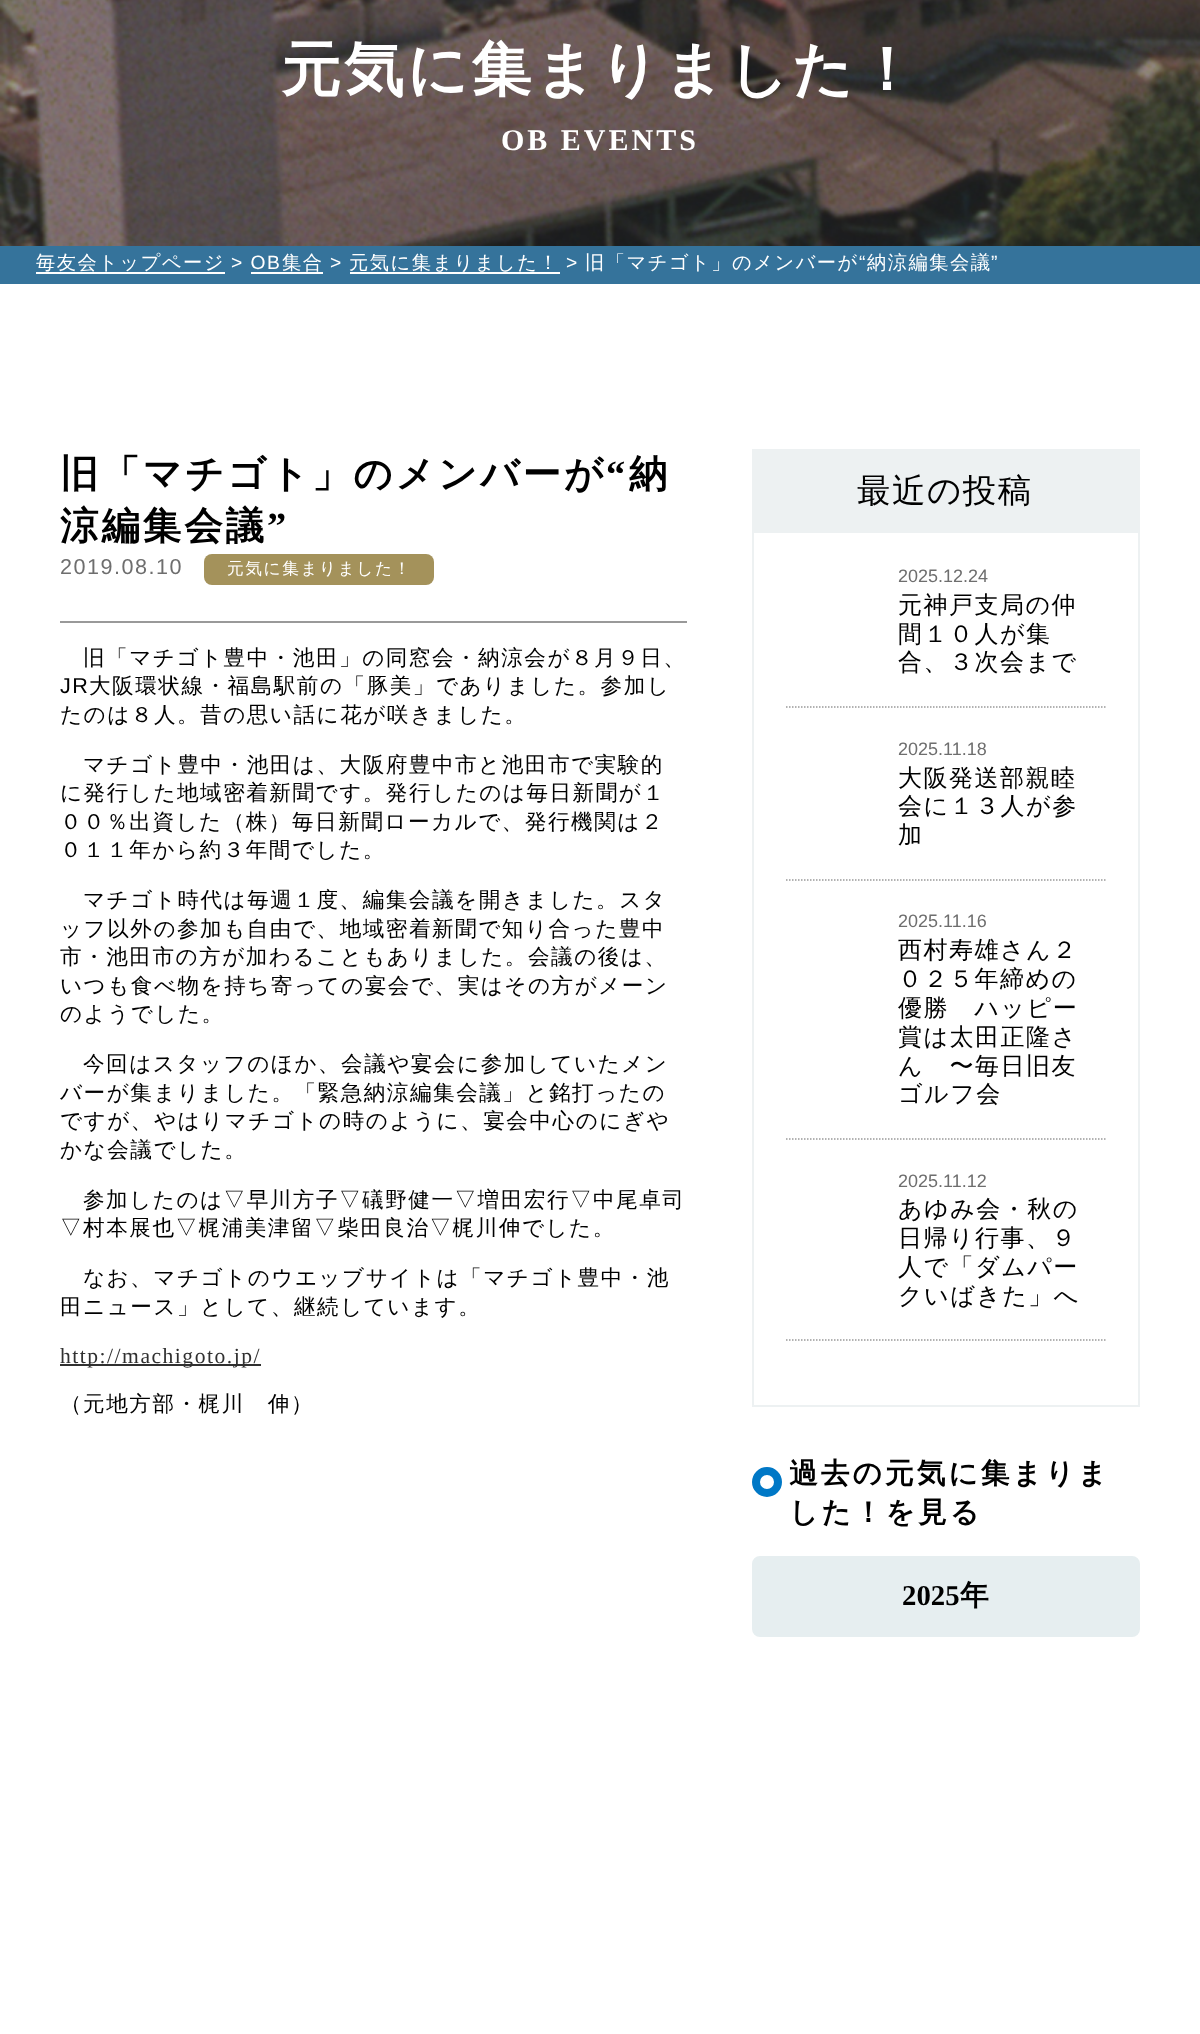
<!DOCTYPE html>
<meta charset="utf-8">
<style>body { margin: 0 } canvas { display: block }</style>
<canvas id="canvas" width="1200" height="2034"></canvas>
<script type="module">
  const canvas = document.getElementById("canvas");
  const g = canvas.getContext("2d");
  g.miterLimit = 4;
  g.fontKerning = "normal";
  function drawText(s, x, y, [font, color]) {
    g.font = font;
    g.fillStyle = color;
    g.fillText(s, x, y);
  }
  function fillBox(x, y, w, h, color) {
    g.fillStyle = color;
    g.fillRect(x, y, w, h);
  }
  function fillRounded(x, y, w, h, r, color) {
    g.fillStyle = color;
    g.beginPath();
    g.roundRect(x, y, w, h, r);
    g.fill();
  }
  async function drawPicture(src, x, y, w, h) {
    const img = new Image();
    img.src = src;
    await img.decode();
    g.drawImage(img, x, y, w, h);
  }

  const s1 = ["bold 60px WenQuanYi Zen Hei", "#FFFFFF"];
  const s2 = ["bold 30px Liberation Serif", "#FFFFFF"];
  const s3 = ["500 19.25px WenQuanYi Zen Hei", "#FFFFFF"];
  const s4 = ["19.25px Liberation Sans", "#FFFFFF"];
  const s5 = ["bold 38.4px WenQuanYi Zen Hei", "#000000"];
  const s6 = ["bold 38.4px Liberation Serif", "#000000"];
  const s7 = ["21.6px Liberation Sans", "#6E6E6E"];
  const s8 = ["500 16.75px WenQuanYi Zen Hei", "#FFFFFF"];
  const s9 = ["500 21.6px WenQuanYi Zen Hei", "#000000"];
  const s10 = ["21.6px Liberation Sans", "#000000"];
  const s11 = ["21.6px Liberation Serif", "#303030"];
  const s12 = ["500 33.5px WenQuanYi Zen Hei", "#000000"];
  const s13 = ["18px Liberation Sans", "#6E6E6E"];
  const s14 = ["500 24px WenQuanYi Zen Hei", "#000000"];
  const s15 = ["bold 28.75px WenQuanYi Zen Hei", "#000000"];
  const s16 = ["bold 28.75px Liberation Serif", "#000000"];

  fillBox(0, 0, 1200, 2034, "#FFFFFF");
  await drawPicture("pic1.png", 0, 0, 1200, 246);
  g.letterSpacing = "3px";
  drawText("元気に集まりました！", 281, 90, s1);
  drawText("OB EVENTS", 501, 150, s2);
  fillBox(0, 246, 1200, 38, "#35739B");
  g.letterSpacing = "1.5px";
  drawText("毎友会トップページ", 36, 269, s3);
  fillBox(36, 272, 189, 2, "#FFFFFF");
  drawText("> OB", 231, 269, s4);
  drawText("集合", 282, 269, s3);
  fillBox(251, 272, 72, 2, "#FFFFFF");
  drawText(">", 330, 269, s4);
  fillBox(350, 272, 210, 2, "#FFFFFF");
  drawText("元気に集まりました！", 349, 269, s3);
  drawText(">", 566, 269, s4);
  drawText("旧「マチゴト」のメンバーが", 585, 269, s3);
  drawText("“", 859, 269, s4);
  drawText("納涼編集会議", 867, 269, s3);
  drawText("”", 991, 269, s4);
  fillBox(60, 621, 627, 2, "#999999");
  g.letterSpacing = "3px";
  drawText("旧「マチゴト」のメンバーが", 60, 487, s5);
  drawText("“", 606, 487, s6);
  drawText("納", 629, 487, s5);
  drawText("涼編集会議", 60, 539, s5);
  drawText("”", 267, 539, s6);
  g.letterSpacing = "1.5px";
  drawText("2019.08.10", 60, 574, s7);
  fillRounded(204, 554, 230, 31, 8, "#A4925B");
  drawText("元気に集まりました！", 227, 574, s8);
  drawText("旧「マチゴト豊中・池田」の同窓会・納涼会が８月９日、", 83, 665, s9);
  drawText("JR", 60, 693, s10);
  drawText("大阪環状線・福島駅前の「豚美」でありました。参加し", 89, 693, s9);
  drawText("たのは８人。昔の思い話に花が咲きました。", 60, 722, s9);
  drawText("マチゴト豊中・池田は、大阪府豊中市と池田市で実験的", 83, 772, s9);
  drawText("に発行した地域密着新聞です。発行したのは毎日新聞が１", 60, 800, s9);
  drawText("００％出資した（株）毎日新聞ローカルで、発行機関は２", 60, 829, s9);
  drawText("０１１年から約３年間でした。", 60, 857, s9);
  drawText("マチゴト時代は毎週１度、編集会議を開きました。スタ", 83, 907, s9);
  drawText("ッフ以外の参加も自由で、地域密着新聞で知り合った豊中", 60, 936, s9);
  drawText("市・池田市の方が加わることもありました。会議の後は、", 60, 964, s9);
  drawText("いつも食べ物を持ち寄っての宴会で、実はその方がメーン", 60, 993, s9);
  drawText("のようでした。", 60, 1021, s9);
  drawText("今回はスタッフのほか、会議や宴会に参加していたメン", 83, 1071, s9);
  drawText("バーが集まりました。「緊急納涼編集会議」と銘打ったの", 60, 1100, s9);
  drawText("ですが、やはりマチゴトの時のように、宴会中心のにぎや", 60, 1128, s9);
  drawText("かな会議でした。", 60, 1157, s9);
  drawText("参加したのは▽早川方子▽礒野健一▽増田宏行▽中尾卓司", 83, 1207, s9);
  drawText("▽村本展也▽梶浦美津留▽柴田良治▽梶川伸でした。", 60, 1235, s9);
  drawText("なお、マチゴトのウエッブサイトは「マチゴト豊中・池", 83, 1285, s9);
  drawText("田ニュース」として、継続しています。", 60, 1314, s9);
  fillBox(60, 1364, 201, 2, "#303030");
  drawText("http://machigoto.jp/", 60, 1363, s11);
  drawText("（元地方部・梶川　伸）", 60, 1411, s9);
  g.strokeStyle = "#EDF1F2";
  g.lineWidth = 2;
  g.strokeRect(753, 450, 386, 956);
  fillBox(754, 451, 384, 82, "#EDF1F2");
  drawText("最近の投稿", 857, 502, s12);
  g.beginPath();
  g.moveTo(786, 707);
  g.lineTo(1105.5, 707);
  g.strokeStyle = "#999999";
  g.lineWidth = 1.5;
  g.setLineDash([1.5, 1.5]);
  g.stroke();
  g.letterSpacing = "0px";
  drawText("2025.12.24", 898, 582, s13);
  g.letterSpacing = "1.5px";
  drawText("元神戸支局の仲", 898, 613, s14);
  drawText("間１０人が集", 898, 642, s14);
  drawText("合、３次会まで", 898, 670, s14);
  g.beginPath();
  g.moveTo(786, 880);
  g.lineTo(1105.5, 880);
  g.stroke();
  g.letterSpacing = "0px";
  drawText("2025.11.18", 898, 755, s13);
  g.letterSpacing = "1.5px";
  drawText("大阪発送部親睦", 898, 786, s14);
  drawText("会に１３人が参", 898, 814, s14);
  drawText("加", 898, 843, s14);
  g.beginPath();
  g.moveTo(786, 1139);
  g.lineTo(1105.5, 1139);
  g.stroke();
  g.letterSpacing = "0px";
  drawText("2025.11.16", 898, 927, s13);
  g.letterSpacing = "1.5px";
  drawText("西村寿雄さん２", 898, 958, s14);
  drawText("０２５年締めの", 898, 987, s14);
  drawText("優勝　ハッピー", 898, 1016, s14);
  drawText("賞は太田正隆さ", 898, 1045, s14);
  drawText("ん　〜毎日旧友", 898, 1074, s14);
  drawText("ゴルフ会", 898, 1102, s14);
  g.beginPath();
  g.moveTo(786, 1340);
  g.lineTo(1105.5, 1340);
  g.stroke();
  g.letterSpacing = "0px";
  drawText("2025.11.12", 898, 1187, s13);
  g.letterSpacing = "1.5px";
  drawText("あゆみ会・秋の", 898, 1217, s14);
  drawText("日帰り行事、９", 898, 1246, s14);
  drawText("人で「ダムパー", 898, 1275, s14);
  drawText("クいばきた」へ", 898, 1304, s14);
  g.beginPath();
  g.arc(767, 1482, 11, 0, Math.PI * 2);
  g.strokeStyle = "#0078C6";
  g.lineWidth = 8;
  g.setLineDash([]);
  g.stroke();
  g.letterSpacing = "3px";
  drawText("過去の元気に集まりま", 789, 1483, s15);
  drawText("した！を見る", 789, 1522, s15);
  g.fillStyle = "#E6EEF0";
  g.beginPath();
  g.roundRect(753, 1557, 386, 79, 7);
  g.fill();
  g.strokeStyle = "#E6EEF0";
  g.lineWidth = 2;
  g.stroke();
  g.letterSpacing = "0px";
  drawText("2025", 902, 1605, s16);
  drawText("年", 960, 1605, s15);
</script>
